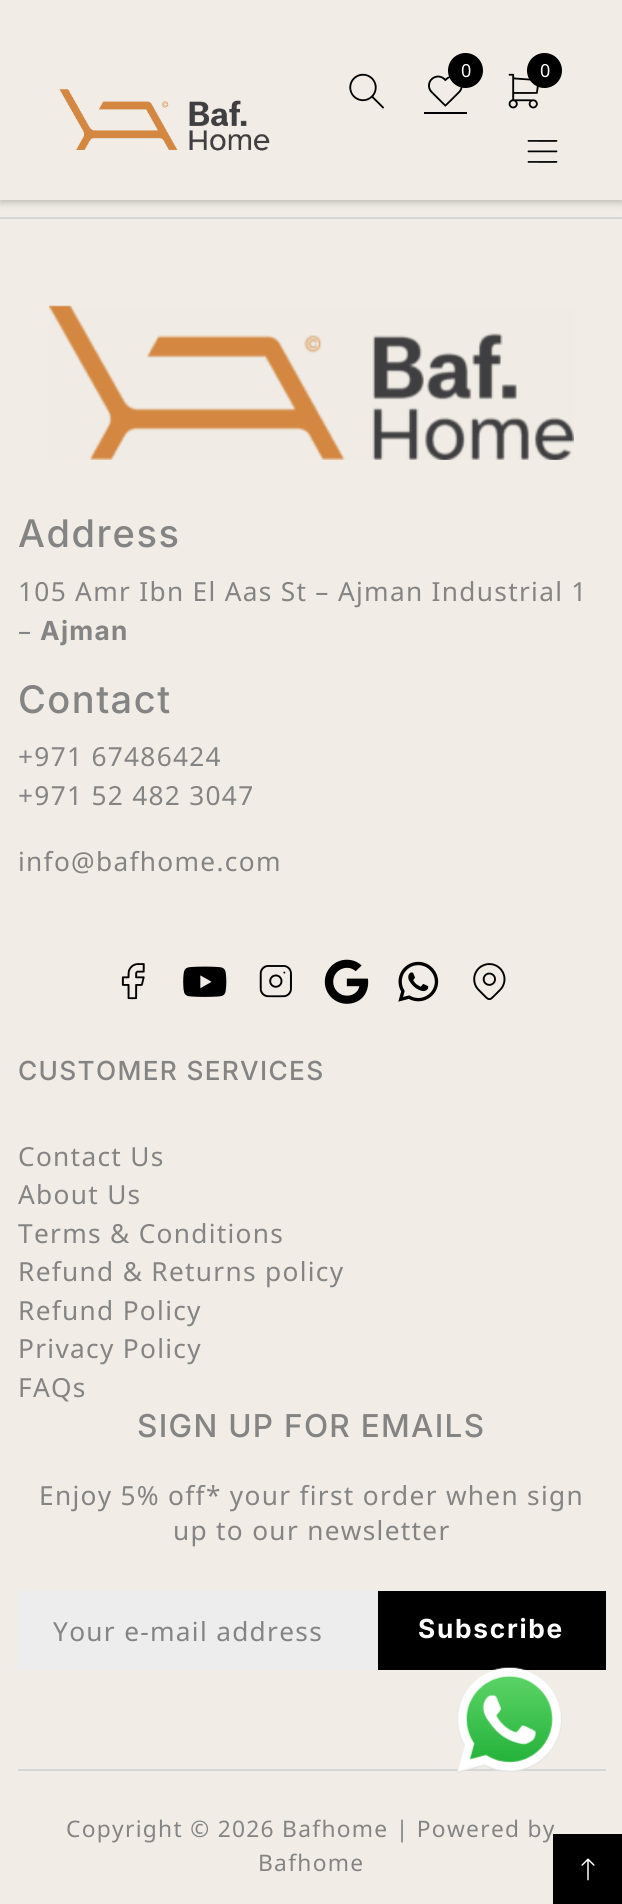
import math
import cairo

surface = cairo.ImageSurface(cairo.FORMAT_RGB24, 622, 1904)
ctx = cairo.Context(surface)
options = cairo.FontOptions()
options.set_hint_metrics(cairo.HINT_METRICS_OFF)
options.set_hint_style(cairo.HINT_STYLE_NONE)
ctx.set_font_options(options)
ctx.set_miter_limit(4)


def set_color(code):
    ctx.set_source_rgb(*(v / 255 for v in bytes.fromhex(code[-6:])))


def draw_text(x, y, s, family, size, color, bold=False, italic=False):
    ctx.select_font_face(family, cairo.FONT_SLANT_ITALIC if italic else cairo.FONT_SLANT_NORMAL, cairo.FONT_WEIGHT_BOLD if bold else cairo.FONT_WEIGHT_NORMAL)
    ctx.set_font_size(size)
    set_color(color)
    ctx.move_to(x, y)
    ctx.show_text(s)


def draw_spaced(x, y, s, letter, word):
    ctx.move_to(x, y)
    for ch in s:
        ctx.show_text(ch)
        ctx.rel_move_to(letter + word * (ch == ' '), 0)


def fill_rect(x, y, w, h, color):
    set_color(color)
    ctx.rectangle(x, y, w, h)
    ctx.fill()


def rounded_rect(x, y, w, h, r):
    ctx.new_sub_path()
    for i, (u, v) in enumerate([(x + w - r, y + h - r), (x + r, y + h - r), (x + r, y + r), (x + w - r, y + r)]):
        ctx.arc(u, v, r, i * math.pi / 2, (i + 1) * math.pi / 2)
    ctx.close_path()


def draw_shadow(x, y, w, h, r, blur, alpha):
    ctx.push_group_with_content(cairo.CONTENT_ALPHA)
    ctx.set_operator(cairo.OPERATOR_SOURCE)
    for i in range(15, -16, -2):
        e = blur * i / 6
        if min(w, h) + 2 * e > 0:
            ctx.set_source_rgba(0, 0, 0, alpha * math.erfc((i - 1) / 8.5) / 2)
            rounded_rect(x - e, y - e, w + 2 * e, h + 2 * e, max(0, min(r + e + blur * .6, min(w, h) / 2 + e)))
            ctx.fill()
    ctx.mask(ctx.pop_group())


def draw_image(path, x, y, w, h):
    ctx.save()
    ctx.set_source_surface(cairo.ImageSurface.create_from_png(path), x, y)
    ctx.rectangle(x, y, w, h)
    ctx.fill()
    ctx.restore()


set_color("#f1ede6")
ctx.paint()
set_color("#000000")
draw_shadow(0, 4, 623, 199, 0, 3.5, 0.2)
fill_rect(0, 0, 622, 200, "#f1ede6")
draw_image("assets/img1.png", 428, 75, 35, 32)
set_color("#000000")
ctx.arc(465.5, 70.5, 17.5, 0, 2 * math.pi)
ctx.fill()
draw_text(461, 77, "0", "Noto Sans", 18, "#ffffff")
fill_rect(424, 112, 43, 2, "#000000")
draw_image("assets/img2.png", 508, 73, 31, 36)
ctx.arc(544.5, 70.5, 17.5, 0, 2 * math.pi)
ctx.fill()
draw_text(540, 77, "0", "Noto Sans", 18, "#ffffff")
draw_image("assets/img3.png", 349, 73, 35, 36)
draw_image("assets/img4.png", 527, 140, 31, 23)
draw_image("assets/img5.png", 59, 89, 211, 62)
fill_rect(0, 217, 622, 2, "#d6d6d6")
draw_image("assets/img6.png", 49, 305, 525, 155)
ctx.select_font_face("Inter Medium")
ctx.set_font_size(38)
set_color("#848484")
draw_spaced(18, 547, "Address", 1.5, 0)
ctx.select_font_face("Noto Sans")
ctx.set_font_size(26.25)
draw_spaced(18, 601, "105 Amr Ibn El Aas St – Ajman Industrial 1", 1.3, 0)
draw_spaced(18, 640, "–", 1.3, 0)
ctx.select_font_face("Inter", cairo.FONT_SLANT_NORMAL, cairo.FONT_WEIGHT_BOLD)
draw_spaced(40, 640, "Ajman", 1.3, 0)
ctx.select_font_face("Inter Medium")
ctx.set_font_size(38)
draw_spaced(18, 713, "Contact", 1.5, 0)
ctx.select_font_face("Noto Sans")
ctx.set_font_size(26.25)
draw_spaced(18, 766, "+971 67486424", 1.3, 0)
draw_spaced(18, 805, "+971 52 482 3047", 1.3, 0)
draw_spaced(18, 871, "info@bafhome.com", 1.3, 0)
draw_image("assets/img7.png", 121, 963, 24, 37)
draw_image("assets/img8.png", 183, 966, 44, 31)
draw_image("assets/img9.png", 259, 965, 33, 33)
draw_image("assets/img10.png", 324, 959, 45, 45)
draw_image("assets/img11.png", 398, 961, 41, 41)
draw_image("assets/img12.png", 473, 963, 33, 37)
ctx.select_font_face("Inter Medium")
draw_spaced(18, 1080, "CUSTOMER SERVICES", 1.3, 0)
ctx.select_font_face("Noto Sans")
draw_spaced(18, 1166, "Contact Us", 1.3, 0)
draw_spaced(18, 1204, "About Us", 1.3, 0)
draw_spaced(18, 1243, "Terms & Conditions", 1.3, 0)
draw_spaced(18, 1281, "Refund & Returns policy", 1.3, 0)
draw_spaced(18, 1320, "Refund Policy", 1.3, 0)
draw_spaced(18, 1358, "Privacy Policy", 1.3, 0)
draw_spaced(18, 1397, "FAQs", 1.3, 0)
ctx.select_font_face("Inter Medium")
ctx.set_font_size(31.5)
draw_spaced(137, 1437, "SIGN UP FOR EMAILS", 1.3, 0)
ctx.select_font_face("Noto Sans")
ctx.set_font_size(26.25)
draw_spaced(39, 1505, "Enjoy 5% off* your first order when sign", 1.3, 0)
draw_spaced(173, 1540, "up to our newsletter", 1.3, 0)
fill_rect(18, 1591, 360, 79, "#ededed")
set_color("#848484")
draw_spaced(53, 1641, "Your e-mail address", 1.3, 0)
fill_rect(378, 1591, 228, 79, "#000000")
ctx.select_font_face("Inter", cairo.FONT_SLANT_NORMAL, cairo.FONT_WEIGHT_BOLD)
set_color("#ffffff")
draw_spaced(418, 1638, "Subscribe", 1.75, 0)
fill_rect(18, 1769, 588, 2, "#d6d6d6")
ctx.select_font_face("Noto Sans")
ctx.set_font_size(22.75)
set_color("#848484")
draw_spaced(66, 1837, "Copyright © 2026 Bafhome | Powered by", 1.3, 0)
draw_spaced(258, 1871, "Bafhome", 1.3, 0)
draw_image("assets/img13.png", 457, 1667, 105, 106)
fill_rect(553, 1834, 69, 70, "#000000")
draw_image("assets/img14.png", 581, 1858, 14, 23)
surface.write_to_png("output.png")
